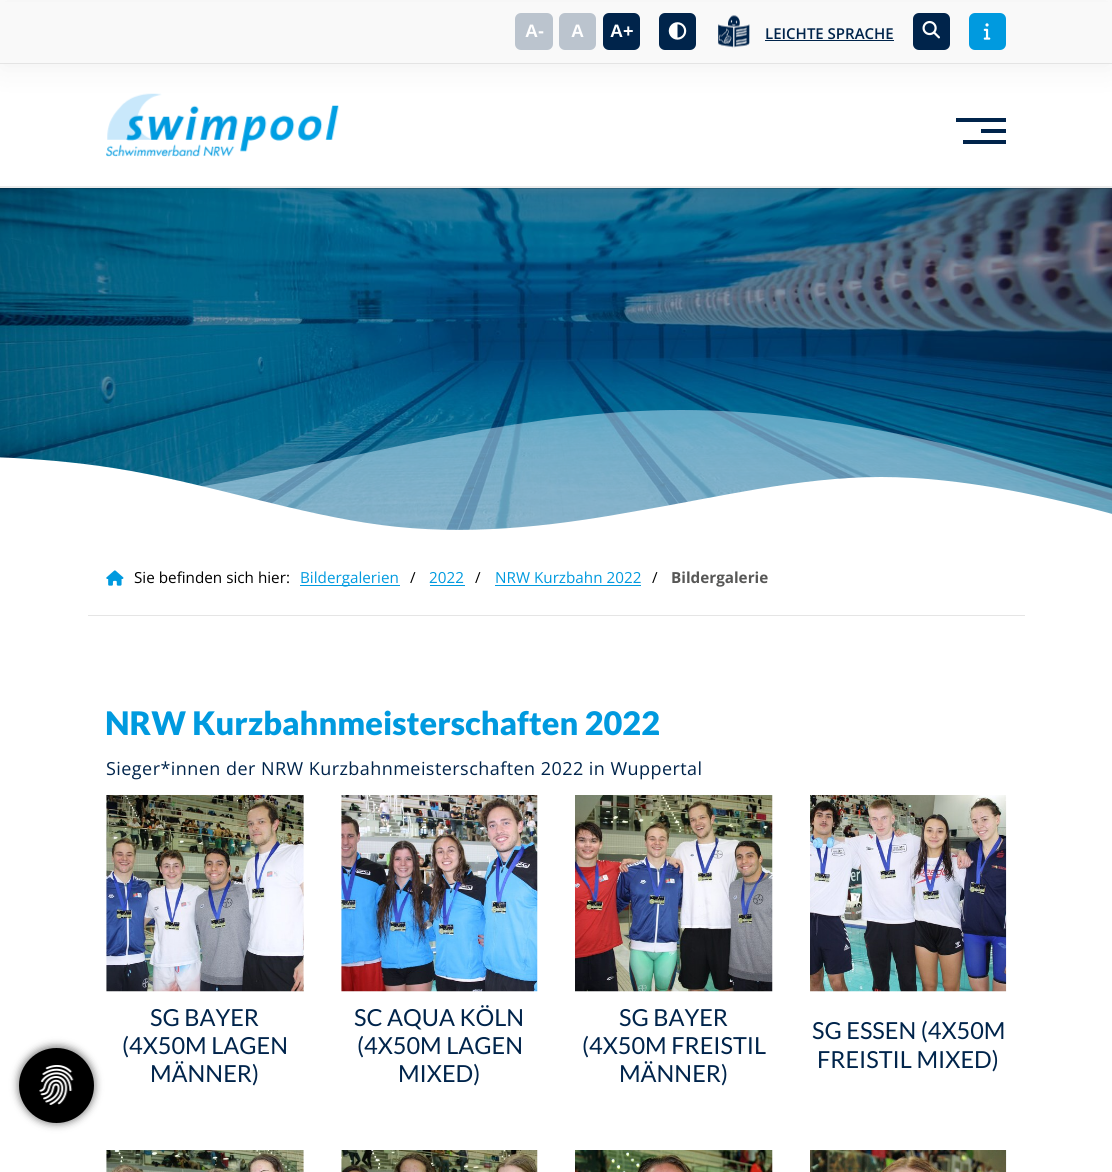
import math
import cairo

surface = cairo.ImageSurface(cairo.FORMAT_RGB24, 1112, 1172)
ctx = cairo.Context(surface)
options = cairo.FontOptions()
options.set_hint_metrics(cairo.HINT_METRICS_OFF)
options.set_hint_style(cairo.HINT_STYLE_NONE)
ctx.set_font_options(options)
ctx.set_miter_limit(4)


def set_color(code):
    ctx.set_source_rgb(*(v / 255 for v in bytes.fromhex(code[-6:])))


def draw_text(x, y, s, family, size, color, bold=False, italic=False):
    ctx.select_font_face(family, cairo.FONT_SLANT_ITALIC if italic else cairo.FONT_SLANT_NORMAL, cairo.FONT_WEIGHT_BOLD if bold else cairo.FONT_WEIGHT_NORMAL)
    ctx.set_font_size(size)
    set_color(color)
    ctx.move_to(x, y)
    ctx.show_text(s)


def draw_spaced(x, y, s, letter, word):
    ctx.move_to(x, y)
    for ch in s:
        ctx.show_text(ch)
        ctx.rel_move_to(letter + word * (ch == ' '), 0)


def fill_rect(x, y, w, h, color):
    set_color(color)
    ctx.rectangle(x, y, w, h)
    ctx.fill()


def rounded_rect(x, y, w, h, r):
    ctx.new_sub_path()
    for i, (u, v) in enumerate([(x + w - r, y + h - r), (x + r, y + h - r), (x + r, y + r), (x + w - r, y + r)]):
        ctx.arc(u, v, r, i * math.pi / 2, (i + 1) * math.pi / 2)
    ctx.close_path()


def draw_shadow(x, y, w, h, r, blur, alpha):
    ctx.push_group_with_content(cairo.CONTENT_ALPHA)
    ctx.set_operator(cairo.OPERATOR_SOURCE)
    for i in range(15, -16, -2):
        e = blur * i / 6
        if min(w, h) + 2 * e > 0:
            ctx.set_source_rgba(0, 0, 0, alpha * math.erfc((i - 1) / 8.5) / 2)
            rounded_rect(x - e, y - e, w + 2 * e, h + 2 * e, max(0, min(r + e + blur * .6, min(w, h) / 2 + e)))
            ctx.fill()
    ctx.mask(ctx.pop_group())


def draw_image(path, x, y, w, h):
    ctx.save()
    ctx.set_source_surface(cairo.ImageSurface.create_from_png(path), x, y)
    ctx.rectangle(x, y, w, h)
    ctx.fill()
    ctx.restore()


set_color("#ffffff")
ctx.paint()
draw_image("assets/img6.png", 0, 188, 1112, 342)
ctx.rectangle(-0.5, -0.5, 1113, 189)
ctx.set_source_rgba(0, 0, 0, 0.08)
ctx.set_line_width(1)
ctx.stroke()
set_color("#000000")
draw_shadow(0, 8, 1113, 187, 0, 15, 0.05)
fill_rect(0, 64, 1112, 124, "#ffffff")
ctx.rectangle(-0.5, -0.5, 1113, 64)
set_color("#ebebeb")
ctx.stroke()
set_color("#000000")
draw_shadow(0, 8, 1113, 62, 0, 15, 0.05)
fill_rect(0, 2, 1112, 61, "#f9f9f9")
set_color("#bbc4ce")
rounded_rect(515, 13, 38, 37, 6)
ctx.fill()
draw_text(525, 37, "A-", "Liberation Sans", 18, "#ffffff", bold=True)
set_color("#bbc4ce")
rounded_rect(559, 13, 37, 37, 6)
ctx.fill()
draw_text(571, 37, "A", "Liberation Sans", 18, "#ffffff", bold=True)
set_color("#00244b")
rounded_rect(603, 13, 37, 37, 6)
ctx.fill()
draw_text(610, 37, "A+", "Liberation Sans", 18, "#ffffff", bold=True)
set_color("#00244b")
rounded_rect(659, 13, 37, 37, 6)
ctx.fill()
draw_image("assets/img1.png", 668, 22, 19, 18)
draw_image("assets/img2.png", 718, 15, 32, 33)
draw_text(765, 39, "LEICHTE SPRACHE", "Open Sans SemiBold", 15, "#00244b")
fill_rect(765, 40, 129, 1, "#00244b")
rounded_rect(913, 13, 37, 37, 6)
ctx.fill()
draw_image("assets/img3.png", 922, 20, 18, 19)
set_color("#009adf")
rounded_rect(969, 13, 37, 37, 6)
ctx.fill()
draw_image("assets/img4.png", 983, 23, 8, 17)
draw_image("assets/img5.png", 106, 93, 233, 64)
fill_rect(981, 129, 25, 4, "#00244b")
fill_rect(956, 118, 50, 4, "#00244b")
fill_rect(956, 140, 50, 4, "#00244b")
fill_rect(956, 140, 7, 4, "#ffffff")
ctx.set_source_rgba(0, 0, 0, 0.08)
ctx.rectangle(0, 186, 1112, 3)
ctx.fill()
ctx.set_source_rgba(0.792, 0.91, 0.984, 0.49)
ctx.new_path()
ctx.move_to(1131, 494)
ctx.line_to(1056, 473)
ctx.curve_to(981, 452, 831, 410, 681, 410)
ctx.curve_to(531, 410, 381, 452, 231, 481)
ctx.curve_to(81, 510, -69, 527, -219, 506)
ctx.curve_to(-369, 485, -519, 427, -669, 398)
ctx.curve_to(-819, 369, -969, 369, -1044, 369)
ctx.line_to(-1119, 369)
ctx.line_to(-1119, 544)
ctx.line_to(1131, 544)
ctx.close_path()
ctx.fill()
set_color("#ffffff")
ctx.new_path()
ctx.move_to(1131, 519)
ctx.line_to(1090, 508)
ctx.curve_to(1048, 498, 965, 477, 881, 477)
ctx.curve_to(798, 477, 715, 498, 631, 512)
ctx.curve_to(548, 527, 465, 536, 381, 525)
ctx.curve_to(298, 514, 215, 486, 131, 471)
ctx.curve_to(48, 456, -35, 456, -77, 456)
ctx.line_to(-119, 456)
ctx.line_to(-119, 544)
ctx.line_to(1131, 544)
ctx.close_path()
ctx.fill()
fill_rect(88, 615, 937, 1, "#e5e5e5")
draw_image("assets/img7.png", 106, 570, 18, 16)
draw_text(134, 583, "Sie befinden sich hier:", "Open Sans", 15.25, "#000000")
fill_rect(300, 585, 100, 1, "#009adf")
draw_text(300, 583, "Bildergalerien", "Open Sans", 15.25, "#009adf")
draw_text(410, 583, "/", "Open Sans", 15.25, "#000000")
draw_text(429, 583, "2022", "Open Sans", 15.25, "#009adf")
fill_rect(430, 585, 35, 1, "#009adf")
draw_text(475, 583, "/", "Open Sans", 15.25, "#000000")
draw_text(495, 583, "NRW Kurzbahn 2022", "Open Sans", 15.25, "#009adf")
fill_rect(495, 585, 146, 1, "#009adf")
draw_text(652, 583, "/", "Open Sans", 15.25, "#000000")
draw_text(671, 583, "Bildergalerie", "Open Sans", 15.25, "#575756", bold=True)
set_color("#000000")
draw_shadow(18, 1046, 77, 78, 38.5, 4, 0.5)
set_color("#000000")
ctx.arc(56.5, 1085.5, 37.5, 0, 2 * math.pi)
ctx.fill()
draw_image("assets/img8.png", 39, 1065, 35, 40)
draw_text(105, 735, "NRW Kurzbahnmeisterschaften 2022", "Lato Black", 32.5, "#009adf")
ctx.select_font_face("Open Sans")
ctx.set_font_size(18)
set_color("#00244b")
draw_spaced(106, 775, "Sieger*innen der NRW Kurzbahnmeisterschaften 2022 in Wuppertal", 0.45, 0)
draw_image("assets/img9.png", 106, 795, 198, 197)
draw_text(150, 1026, "SG BAYER", "Lato", 23.5, "#00244b")
draw_text(122, 1054, "(4X50M LAGEN", "Lato", 23.5, "#00244b")
draw_text(150, 1082, "MÄNNER)", "Lato", 23.5, "#00244b")
draw_image("assets/img10.png", 341, 795, 197, 197)
draw_text(354, 1026, "SC AQUA KÖLN", "Lato", 23.5, "#00244b")
draw_text(357, 1054, "(4X50M LAGEN", "Lato", 23.5, "#00244b")
draw_text(398, 1082, "MIXED)", "Lato", 23.5, "#00244b")
draw_image("assets/img11.png", 575, 795, 198, 197)
draw_text(619, 1026, "SG BAYER", "Lato", 23.5, "#00244b")
draw_text(582, 1054, "(4X50M FREISTIL", "Lato", 23.5, "#00244b")
draw_text(619, 1082, "MÄNNER)", "Lato", 23.5, "#00244b")
draw_image("assets/img12.png", 810, 795, 197, 197)
draw_text(812, 1039, "SG ESSEN (4X50M", "Lato", 23.5, "#00244b")
draw_text(817, 1068, "FREISTIL MIXED)", "Lato", 23.5, "#00244b")
draw_image("assets/img13.png", 106, 1150, 198, 22)
draw_image("assets/img14.png", 341, 1150, 197, 22)
draw_image("assets/img15.png", 575, 1150, 198, 22)
draw_image("assets/img16.png", 810, 1150, 197, 22)
surface.write_to_png("output.png")
